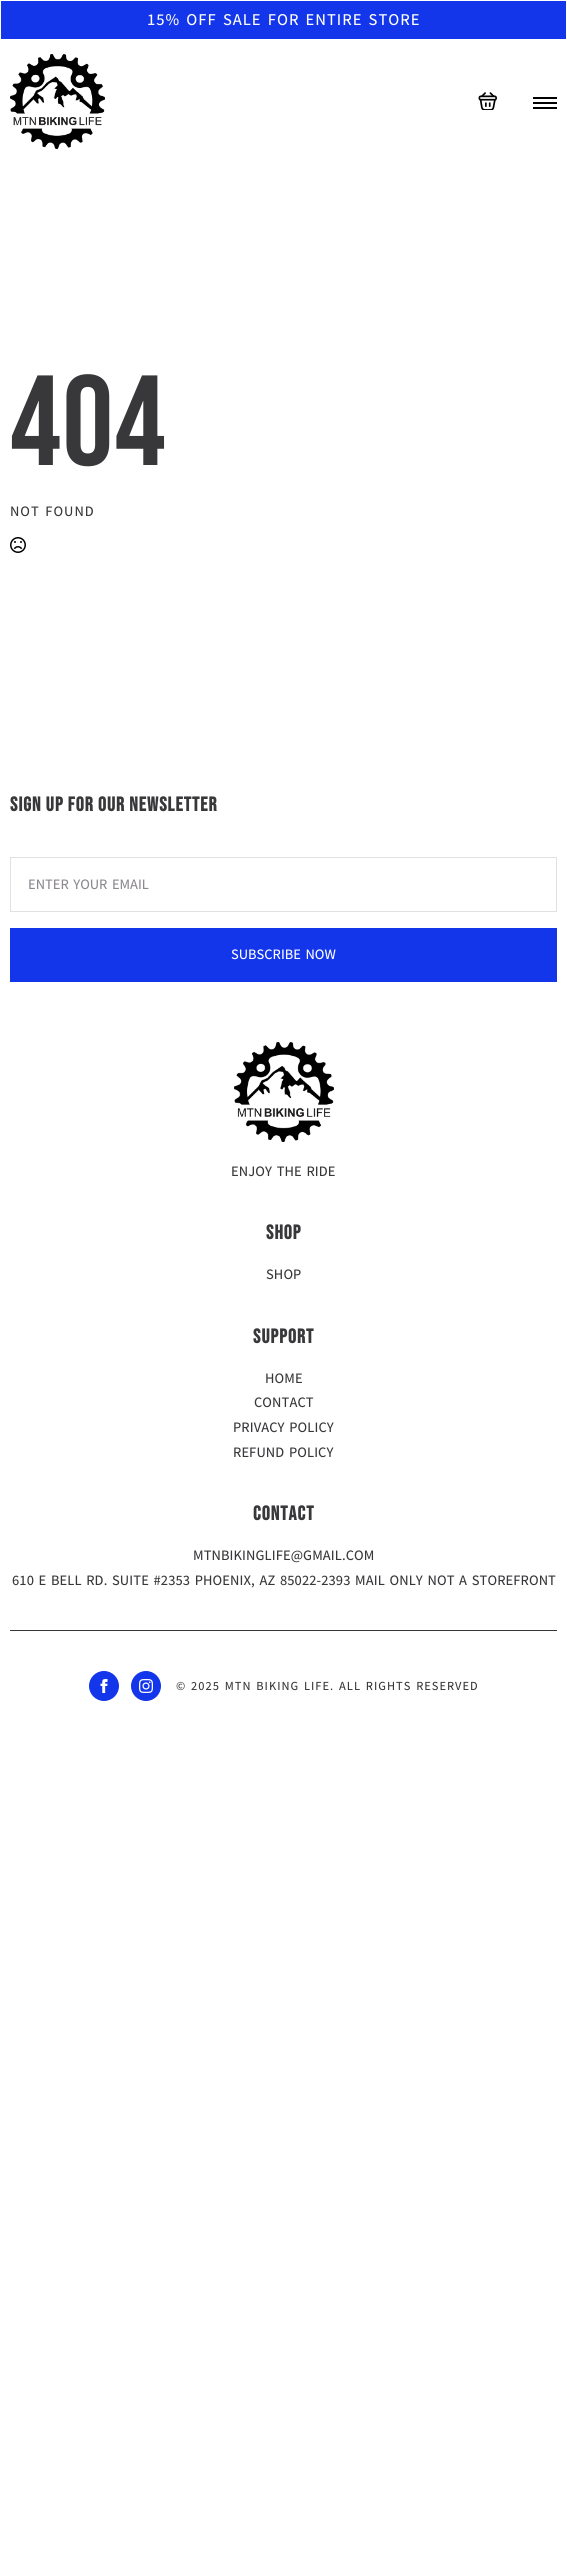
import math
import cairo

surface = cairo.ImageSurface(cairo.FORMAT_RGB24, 567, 2555)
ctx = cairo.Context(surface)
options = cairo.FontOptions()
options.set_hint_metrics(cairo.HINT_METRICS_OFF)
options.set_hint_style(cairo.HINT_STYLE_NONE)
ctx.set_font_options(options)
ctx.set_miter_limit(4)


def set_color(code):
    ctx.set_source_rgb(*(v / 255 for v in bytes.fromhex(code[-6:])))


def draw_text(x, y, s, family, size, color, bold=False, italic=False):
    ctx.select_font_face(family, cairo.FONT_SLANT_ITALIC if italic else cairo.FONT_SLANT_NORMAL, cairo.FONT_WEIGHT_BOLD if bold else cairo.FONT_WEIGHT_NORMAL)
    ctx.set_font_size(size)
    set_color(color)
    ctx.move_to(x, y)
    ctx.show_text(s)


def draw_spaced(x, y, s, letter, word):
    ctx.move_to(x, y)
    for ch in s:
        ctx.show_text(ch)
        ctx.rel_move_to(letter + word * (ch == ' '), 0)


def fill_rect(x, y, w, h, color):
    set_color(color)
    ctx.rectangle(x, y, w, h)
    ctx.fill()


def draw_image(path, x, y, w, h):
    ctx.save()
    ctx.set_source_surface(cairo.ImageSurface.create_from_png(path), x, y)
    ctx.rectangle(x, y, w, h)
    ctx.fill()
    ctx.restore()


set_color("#ffffff")
ctx.paint()
fill_rect(1, 1, 565, 38, "#1336ea")
ctx.select_font_face("Akatab Medium")
ctx.set_font_size(16)
set_color("#ffffff")
draw_spaced(147, 25, "15% OFF SALE FOR ENTIRE STORE", 1, 0)
draw_image("assets/img1.png", 10, 54, 95, 95)
draw_image("assets/img2.png", 478, 92, 19, 18)
fill_rect(533, 102, 24, 2, "#000000")
fill_rect(533, 97, 24, 2, "#000000")
fill_rect(533, 107, 24, 2, "#000000")
ctx.select_font_face("Bebas Neue")
ctx.set_font_size(128)
set_color("#38373a")
draw_spaced(10, 465, "404", 1, 0)
ctx.select_font_face("Akatab Medium")
ctx.set_font_size(14)
draw_spaced(10, 516, "NOT FOUND", 1, 0)
draw_image("assets/img3.png", 10, 537, 16, 16)
ctx.select_font_face("Bebas Neue", cairo.FONT_SLANT_NORMAL, cairo.FONT_WEIGHT_BOLD)
ctx.set_font_size(20)
draw_spaced(10, 811, "SIGN UP FOR OUR NEWSLETTER", 1, 0)
ctx.rectangle(10.5, 857.5, 546, 54)
set_color("#e1e1e1")
ctx.set_line_width(1)
ctx.stroke()
draw_text(28, 889, "ENTER YOUR EMAIL", "Akatab Medium", 14, "#8c8990")
fill_rect(10, 928, 547, 54, "#1336ea")
draw_text(231, 959, "SUBSCRIBE NOW", "Akatab Medium", 14, "#ffffff")
draw_image("assets/img4.png", 234, 1042, 100, 100)
set_color("#38373a")
draw_spaced(231, 1176, "ENJOY THE RIDE", 0.1, 0)
ctx.select_font_face("Bebas Neue", cairo.FONT_SLANT_NORMAL, cairo.FONT_WEIGHT_BOLD)
ctx.set_font_size(20)
draw_spaced(266, 1239, "SHOP", 1, 0)
ctx.select_font_face("Akatab Medium")
ctx.set_font_size(14)
draw_spaced(266, 1279, "SHOP", 0.1, 0)
ctx.select_font_face("Bebas Neue", cairo.FONT_SLANT_NORMAL, cairo.FONT_WEIGHT_BOLD)
ctx.set_font_size(20)
draw_spaced(253, 1343, "SUPPORT", 1, 0)
ctx.select_font_face("Akatab Medium")
ctx.set_font_size(14)
draw_spaced(265, 1383, "HOME", 0.1, 0)
draw_spaced(254, 1407, "CONTACT", 0.1, 0)
draw_spaced(233, 1432, "PRIVACY POLICY", 0.1, 0)
draw_spaced(233, 1457, "REFUND POLICY", 0.1, 0)
ctx.select_font_face("Bebas Neue", cairo.FONT_SLANT_NORMAL, cairo.FONT_WEIGHT_BOLD)
ctx.set_font_size(20)
draw_spaced(253, 1520, "CONTACT", 1, 0)
ctx.select_font_face("Akatab Medium")
ctx.set_font_size(14)
draw_spaced(193, 1560, "MTNBIKINGLIFE@GMAIL.COM", 0.1, 0)
draw_spaced(12, 1585, "610 E BELL RD. SUITE #2353 PHOENIX, AZ 85022-2393 MAIL ONLY NOT A STOREFRONT", 0.1, 0)
fill_rect(10, 1630, 547, 1, "#38373a")
set_color("#1336ea")
ctx.new_path()
ctx.arc(104, 1686, 15, 0, 2 * math.pi)
ctx.fill()
draw_image("assets/img5.png", 100, 1679, 8, 14)
ctx.arc(146, 1686, 15, 0, 2 * math.pi)
ctx.fill()
draw_image("assets/img6.png", 139, 1679, 14, 14)
ctx.set_font_size(12)
set_color("#38373a")
draw_spaced(176, 1690, "© 2025 MTN BIKING LIFE. ALL RIGHTS RESERVED", 1, 0)
surface.write_to_png("output.png")
